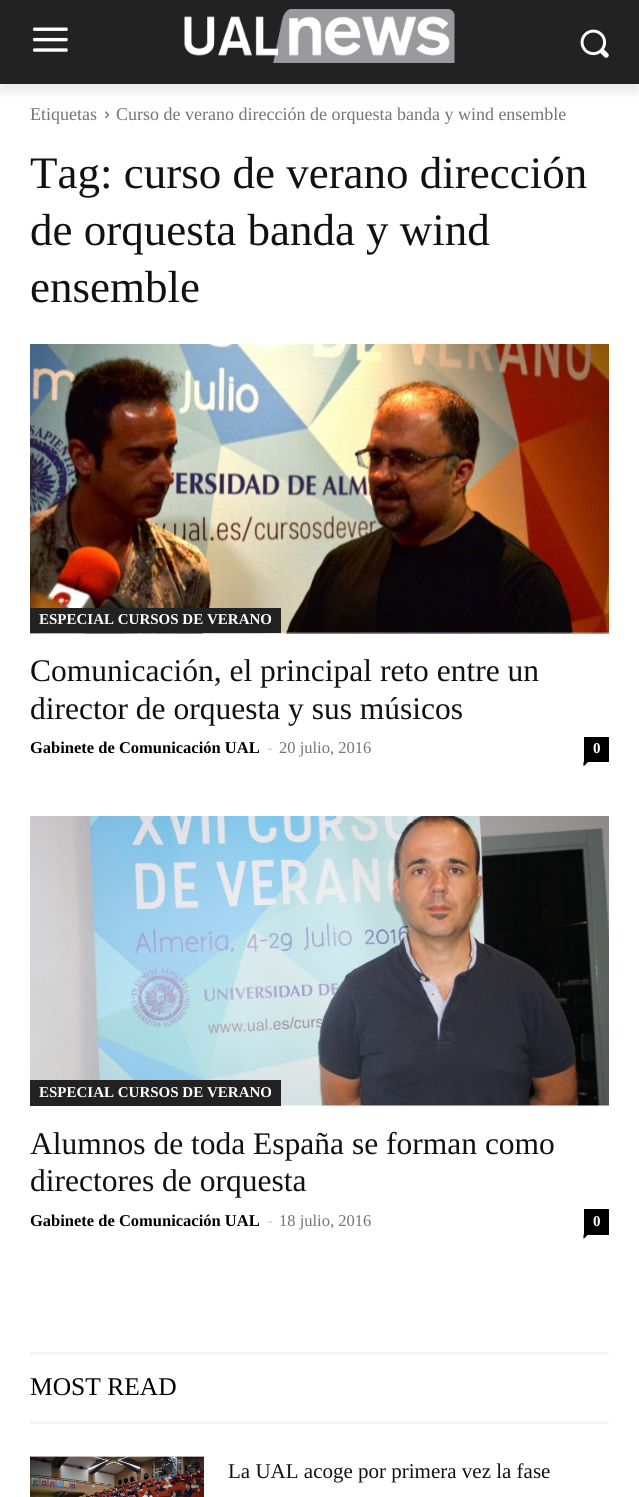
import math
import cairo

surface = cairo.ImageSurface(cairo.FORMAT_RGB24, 639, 1497)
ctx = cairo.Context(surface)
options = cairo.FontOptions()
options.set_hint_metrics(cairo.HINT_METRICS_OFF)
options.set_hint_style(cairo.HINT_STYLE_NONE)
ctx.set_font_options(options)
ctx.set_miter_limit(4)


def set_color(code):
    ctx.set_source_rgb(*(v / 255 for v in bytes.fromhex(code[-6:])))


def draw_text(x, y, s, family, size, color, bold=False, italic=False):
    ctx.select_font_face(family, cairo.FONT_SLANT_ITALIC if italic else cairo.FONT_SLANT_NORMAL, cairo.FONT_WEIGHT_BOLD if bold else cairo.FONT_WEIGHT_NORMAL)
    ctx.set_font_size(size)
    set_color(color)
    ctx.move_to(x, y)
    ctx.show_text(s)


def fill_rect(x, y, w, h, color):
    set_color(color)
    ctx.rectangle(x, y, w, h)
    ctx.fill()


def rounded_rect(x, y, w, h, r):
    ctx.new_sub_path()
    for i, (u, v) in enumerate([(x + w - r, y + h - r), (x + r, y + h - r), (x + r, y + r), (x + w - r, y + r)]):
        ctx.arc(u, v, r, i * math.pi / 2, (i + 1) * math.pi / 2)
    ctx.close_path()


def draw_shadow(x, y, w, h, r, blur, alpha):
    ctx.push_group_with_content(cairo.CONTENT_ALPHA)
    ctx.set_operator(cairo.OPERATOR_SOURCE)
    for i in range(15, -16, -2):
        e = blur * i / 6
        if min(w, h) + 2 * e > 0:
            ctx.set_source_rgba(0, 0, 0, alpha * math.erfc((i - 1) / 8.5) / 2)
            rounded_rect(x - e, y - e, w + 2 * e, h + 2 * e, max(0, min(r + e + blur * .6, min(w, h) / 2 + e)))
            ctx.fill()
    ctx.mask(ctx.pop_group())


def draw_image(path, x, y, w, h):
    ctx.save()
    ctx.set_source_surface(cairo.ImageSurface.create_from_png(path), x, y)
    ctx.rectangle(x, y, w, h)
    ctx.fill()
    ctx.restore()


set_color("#ffffff")
ctx.paint()
fill_rect(0, 0, 639, 84, "#222222")
draw_image("assets/img1.png", 33, 27, 35, 25)
draw_image("assets/img2.png", 184, 9, 271, 54)
draw_image("assets/img3.png", 580, 29, 29, 29)
draw_image("assets/img4.png", 105, 111, 4, 8)
ctx.save()
ctx.rectangle(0, 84, 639, 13)
ctx.clip()
set_color("#000000")
draw_shadow(0, 9, 639, 84, 0, 6, 0.08)
ctx.restore()
draw_text(30, 120, "Etiquetas", "Liberation Serif", 18, "#747474")
draw_text(116, 120, "Curso de verano dirección de orquesta banda y wind ensemble", "Liberation Serif", 18, "#747474")
draw_text(30, 188, "Tag: curso de verano dirección", "Liberation Serif", 45, "#111111")
draw_text(30, 245, "de orquesta banda y wind", "Liberation Serif", 45, "#111111")
draw_text(30, 302, "ensemble", "Liberation Serif", 45, "#111111")
draw_image("assets/img5.png", 30, 344, 579, 290)
fill_rect(30, 608, 251, 25, "#222222")
draw_text(39, 624, "ESPECIAL CURSOS DE VERANO", "Liberation Serif", 15, "#ffffff", bold=True)
draw_text(30, 681, "Comunicación, el principal reto entre un", "Liberation Serif", 31.5, "#111111")
draw_text(30, 719, "director de orquesta y sus músicos", "Liberation Serif", 31.5, "#111111")
draw_text(30, 753, "Gabinete de Comunicación UAL", "Liberation Serif", 16.5, "#000000", bold=True)
draw_text(267, 753, "-", "Liberation Serif", 16.5, "#cccccc")
draw_text(279, 753, "20 julio, 2016", "Liberation Serif", 16.5, "#747474")
fill_rect(584, 737, 25, 25, "#000000")
draw_text(593, 753, "0", "Liberation Serif", 15, "#ffffff", bold=True)
set_color("#000000")
ctx.new_path()
ctx.move_to(583.5, 762)
ctx.line_to(588, 762)
ctx.line_to(583.5, 766.5)
ctx.close_path()
ctx.fill()
draw_image("assets/img6.png", 30, 816, 579, 290)
fill_rect(30, 1080, 251, 26, "#222222")
draw_text(39, 1097, "ESPECIAL CURSOS DE VERANO", "Liberation Serif", 15, "#ffffff", bold=True)
draw_text(30, 1154, "Alumnos de toda España se forman como", "Liberation Serif", 31.5, "#111111")
draw_text(30, 1191, "directores de orquesta", "Liberation Serif", 31.5, "#111111")
draw_text(30, 1226, "Gabinete de Comunicación UAL", "Liberation Serif", 16.5, "#000000", bold=True)
draw_text(267, 1226, "-", "Liberation Serif", 16.5, "#cccccc")
draw_text(279, 1226, "18 julio, 2016", "Liberation Serif", 16.5, "#747474")
fill_rect(584, 1209, 25, 26, "#000000")
draw_text(593, 1226, "0", "Liberation Serif", 15, "#ffffff", bold=True)
set_color("#000000")
ctx.new_path()
ctx.move_to(583.5, 1234.5)
ctx.line_to(588, 1234.5)
ctx.line_to(583.5, 1239)
ctx.close_path()
ctx.fill()
fill_rect(30, 1352, 579, 3, "#f5f5f5")
draw_text(30, 1395, "MOST READ", "Liberation Serif", 25.5, "#000000")
fill_rect(30, 1421, 579, 3, "#f5f5f5")
draw_image("assets/img7.png", 30, 1456, 174, 41)
draw_text(228, 1478, "La UAL acoge por primera vez la fase", "Liberation Serif", 21, "#111111")
surface.write_to_png("output.png")
